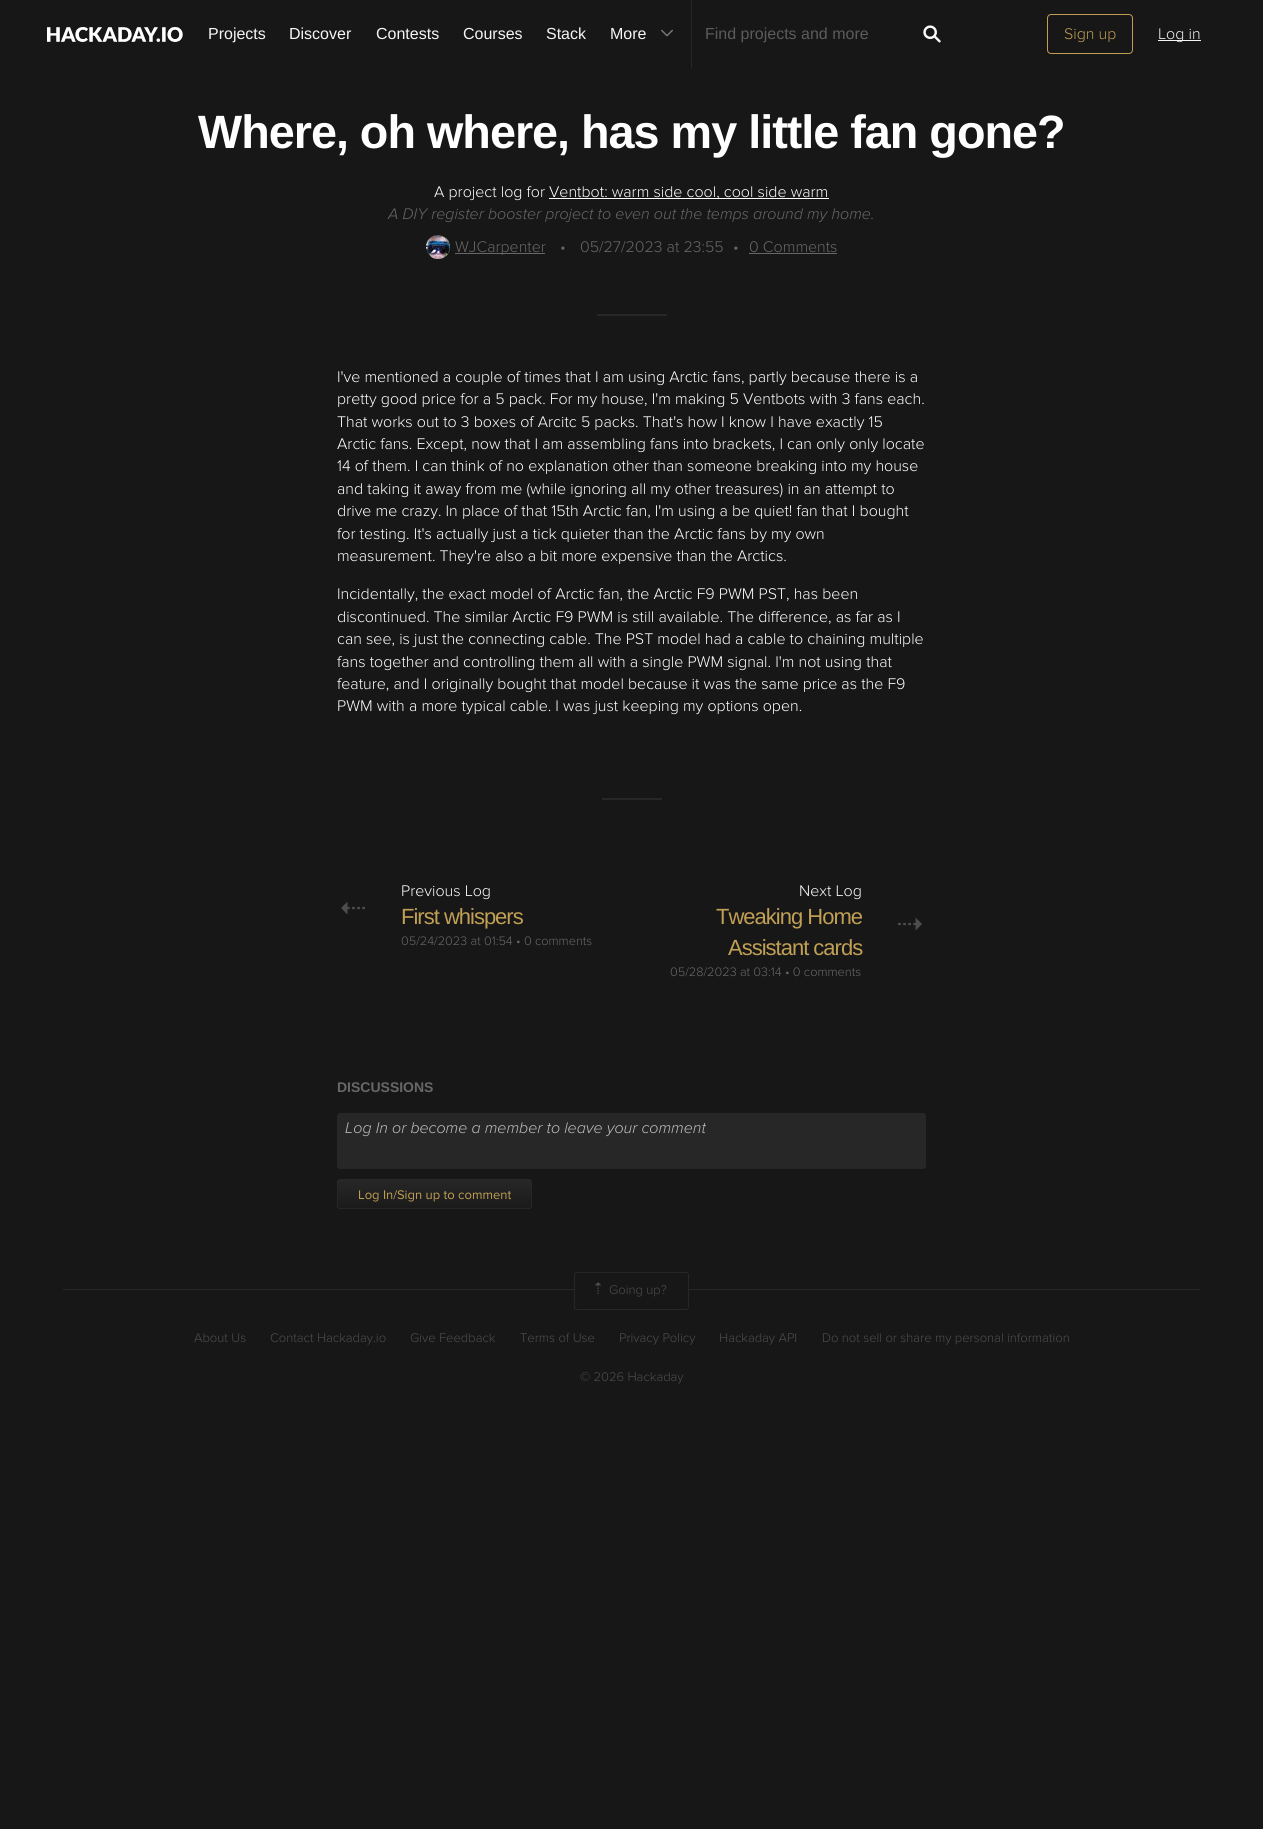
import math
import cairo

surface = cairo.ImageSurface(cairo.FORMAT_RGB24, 1263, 1829)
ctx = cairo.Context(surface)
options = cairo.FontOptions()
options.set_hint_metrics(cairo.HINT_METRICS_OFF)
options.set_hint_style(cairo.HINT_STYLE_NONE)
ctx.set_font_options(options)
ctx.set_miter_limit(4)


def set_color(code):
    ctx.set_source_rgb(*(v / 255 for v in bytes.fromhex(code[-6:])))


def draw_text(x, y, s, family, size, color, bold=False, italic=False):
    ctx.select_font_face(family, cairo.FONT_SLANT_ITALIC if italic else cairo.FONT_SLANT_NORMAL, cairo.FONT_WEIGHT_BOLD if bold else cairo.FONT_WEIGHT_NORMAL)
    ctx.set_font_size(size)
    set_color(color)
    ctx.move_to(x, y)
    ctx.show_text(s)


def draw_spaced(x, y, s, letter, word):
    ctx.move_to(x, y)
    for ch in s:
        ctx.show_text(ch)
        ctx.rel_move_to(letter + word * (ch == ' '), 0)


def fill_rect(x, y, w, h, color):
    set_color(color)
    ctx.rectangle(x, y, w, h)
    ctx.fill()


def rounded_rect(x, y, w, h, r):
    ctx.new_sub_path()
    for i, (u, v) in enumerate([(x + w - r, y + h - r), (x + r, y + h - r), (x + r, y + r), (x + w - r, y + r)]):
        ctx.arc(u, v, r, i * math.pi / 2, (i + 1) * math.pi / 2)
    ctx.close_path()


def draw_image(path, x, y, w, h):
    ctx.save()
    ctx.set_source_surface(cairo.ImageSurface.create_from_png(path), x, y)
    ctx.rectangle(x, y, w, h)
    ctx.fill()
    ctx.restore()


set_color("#171717")
ctx.paint()
draw_image("assets/img1.png", 47, 27, 136, 15)
draw_text(208, 39, "Projects", "Liberation Sans", 16, "#f5f5f5")
draw_text(289, 39, "Discover", "Liberation Sans", 16, "#f5f5f5")
draw_text(376, 39, "Contests", "Liberation Sans", 16, "#f5f5f5")
draw_text(463, 39, "Courses", "Liberation Sans", 16, "#f5f5f5")
draw_text(546, 39, "Stack", "Liberation Sans", 16, "#f5f5f5")
draw_text(610, 39, "More", "Liberation Sans", 16, "#f5f5f5")
draw_image("assets/img2.png", 661, 29, 12, 8)
fill_rect(691, 0, 1, 68, "#272727")
draw_text(705, 39, "Find projects and more", "Liberation Sans", 16, "#5b5b5b")
draw_image("assets/img3.png", 923, 25, 18, 18)
rounded_rect(1047.5, 14.5, 85, 39, 3.5)
set_color("#c19e53")
ctx.set_line_width(1)
ctx.stroke()
draw_text(1064, 39, "Sign up", "Proxima Nova Light", 16, "#c19f54")
fill_rect(1158, 40, 43, 1, "#f5f5f5")
draw_text(1158, 39, "Log in", "Proxima Nova Light", 16, "#f5f5f5")
ctx.select_font_face("Liberation Sans", cairo.FONT_SLANT_NORMAL, cairo.FONT_WEIGHT_BOLD)
ctx.set_font_size(46.75)
set_color("#ffffff")
draw_spaced(198, 148, "Where, oh where, has my little fan gone?", -1, 0)
draw_text(434, 197, "A project log for", "Proxima Nova Light", 16, "#ffffff")
fill_rect(549, 198, 280, 1, "#ffffff")
draw_text(549, 197, "Ventbot: warm side cool, cool side warm", "Proxima Nova Light", 16, "#ffffff")
draw_text(388, 219, "A DIY register booster project to even out the temps around my home.", "Proxima Nova Light", 16, "#676767", italic=True)
draw_image("assets/img4.png", 426, 235, 24, 24)
fill_rect(455, 253, 90, 1, "#676767")
draw_text(455, 252, "WJCarpenter", "Proxima Nova Light", 16, "#676767")
draw_text(560, 252, "•", "Proxima Nova Light", 16, "#676767")
draw_text(580, 252, "05/27/2023 at 23:55", "Proxima Nova Light", 16, "#676767")
draw_text(733, 252, "•", "Proxima Nova Light", 16, "#676767")
draw_text(749, 252, "0 Comments", "Proxima Nova Light", 16, "#676767")
fill_rect(749, 253, 88, 1, "#676767")
fill_rect(597, 314, 70, 2, "#272727")
draw_text(337, 382, "I've mentioned a couple of times that I am using Arctic fans, partly because there is a", "Proxima Nova Light", 16, "#ffffff")
draw_text(337, 404, "pretty good price for a 5 pack. For my house, I'm making 5 Ventbots with 3 fans each.", "Proxima Nova Light", 16, "#ffffff")
draw_text(337, 427, "That works out to 3 boxes of Arcitc 5 packs. That's how I know I have exactly 15", "Proxima Nova Light", 16, "#ffffff")
draw_text(337, 449, "Arctic fans. Except, now that I am assembling fans into brackets, I can only only locate", "Proxima Nova Light", 16, "#ffffff")
draw_text(337, 471, "14 of them. I can think of no explanation other than someone breaking into my house", "Proxima Nova Light", 16, "#ffffff")
draw_text(337, 494, "and taking it away from me (while ignoring all my other treasures) in an attempt to", "Proxima Nova Light", 16, "#ffffff")
draw_text(337, 516, "drive me crazy. In place of that 15th Arctic fan, I'm using a be quiet! fan that I bought", "Proxima Nova Light", 16, "#ffffff")
draw_text(337, 539, "for testing. It's actually just a tick quieter than the Arctic fans by my own", "Proxima Nova Light", 16, "#ffffff")
draw_text(337, 561, "measurement. They're also a bit more expensive than the Arctics.", "Proxima Nova Light", 16, "#ffffff")
draw_text(337, 599, "Incidentally, the exact model of Arctic fan, the Arctic F9 PWM PST, has been", "Proxima Nova Light", 16, "#ffffff")
draw_text(337, 622, "discontinued. The similar Arctic F9 PWM is still available. The difference, as far as I", "Proxima Nova Light", 16, "#ffffff")
draw_text(337, 644, "can see, is just the connecting cable. The PST model had a cable to chaining multiple", "Proxima Nova Light", 16, "#ffffff")
draw_text(337, 667, "fans together and controlling them all with a single PWM signal. I'm not using that", "Proxima Nova Light", 16, "#ffffff")
draw_text(337, 689, "feature, and I originally bought that model because it was the same price as the F9", "Proxima Nova Light", 16, "#ffffff")
draw_text(337, 711, "PWM with a more typical cable. I was just keeping my options open.", "Proxima Nova Light", 16, "#ffffff")
fill_rect(602, 798, 60, 2, "#272727")
draw_image("assets/img5.png", 341, 901, 24, 14)
draw_text(401, 896, "Previous Log", "Proxima Nova Light", 16, "#ffffff")
ctx.select_font_face("Liberation Sans")
ctx.set_font_size(22)
set_color("#c19f54")
draw_spaced(401, 924, "First whispers", -1, 0)
draw_text(401, 945, "05/24/2023 at 01:54 • 0 comments", "Proxima Nova Light", 12.75, "#676767")
draw_text(799, 896, "Next Log", "Proxima Nova Light", 16, "#ffffff")
ctx.select_font_face("Liberation Sans")
ctx.set_font_size(22)
set_color("#c19f54")
draw_spaced(716, 924, "Tweaking Home", -1, 0)
draw_spaced(728, 955, "Assistant cards", -1, 0)
draw_text(670, 976, "05/28/2023 at 03:14 • 0 comments", "Proxima Nova Light", 12.75, "#676767")
draw_image("assets/img6.png", 898, 917, 24, 14)
draw_text(337, 1092, "DISCUSSIONS", "Liberation Sans", 14, "#676767", bold=True)
set_color("#272727")
rounded_rect(337, 1113, 589, 56, 3)
ctx.fill()
draw_text(345, 1133, "Log In or become a member to leave your comment", "Proxima Nova Light", 16, "#bfbfbf", italic=True)
ctx.save()
rounded_rect(337, 1179, 195, 30, 3)
ctx.clip()
gradient = cairo.LinearGradient(435, 1180, 435, 1208)
gradient.add_color_stop_rgba(0, 0.153, 0.153, 0.153, 1)
gradient.add_color_stop_rgba(1, 0.102, 0.102, 0.102, 1)
ctx.set_source(gradient)
ctx.rectangle(337, 1180, 195, 28)
ctx.fill()
ctx.restore()
rounded_rect(337.5, 1179.5, 194, 29, 2.5)
set_color("#272727")
ctx.stroke()
draw_text(358, 1199, "Log In/Sign up to comment", "Proxima Nova", 13, "#c19f54")
fill_rect(63, 1289, 1137, 1, "#272727")
set_color("#171717")
rounded_rect(574.5, 1272.5, 114, 37, 2.5)
ctx.fill_preserve()
set_color("#272727")
ctx.stroke()
draw_image("assets/img7.png", 595, 1282, 6, 12)
draw_text(609, 1294, "Going up?", "Proxima Nova Light", 13, "#4d4d4d")
draw_text(194, 1342, "About Us", "Proxima Nova Light", 13, "#4d4d4d")
draw_text(270, 1342, "Contact Hackaday.io", "Proxima Nova Light", 13, "#4d4d4d")
draw_text(410, 1342, "Give Feedback", "Proxima Nova Light", 13, "#4d4d4d")
draw_text(520, 1342, "Terms of Use", "Proxima Nova Light", 13, "#4d4d4d")
draw_text(619, 1342, "Privacy Policy", "Proxima Nova Light", 13, "#4d4d4d")
draw_text(719, 1342, "Hackaday API", "Proxima Nova Light", 13, "#4d4d4d")
draw_text(822, 1342, "Do not sell or share my personal information", "Proxima Nova Light", 13, "#4d4d4d")
draw_text(580, 1381, "© 2026 Hackaday", "Proxima Nova Light", 13, "#4d4d4d")
surface.write_to_png("output.png")
